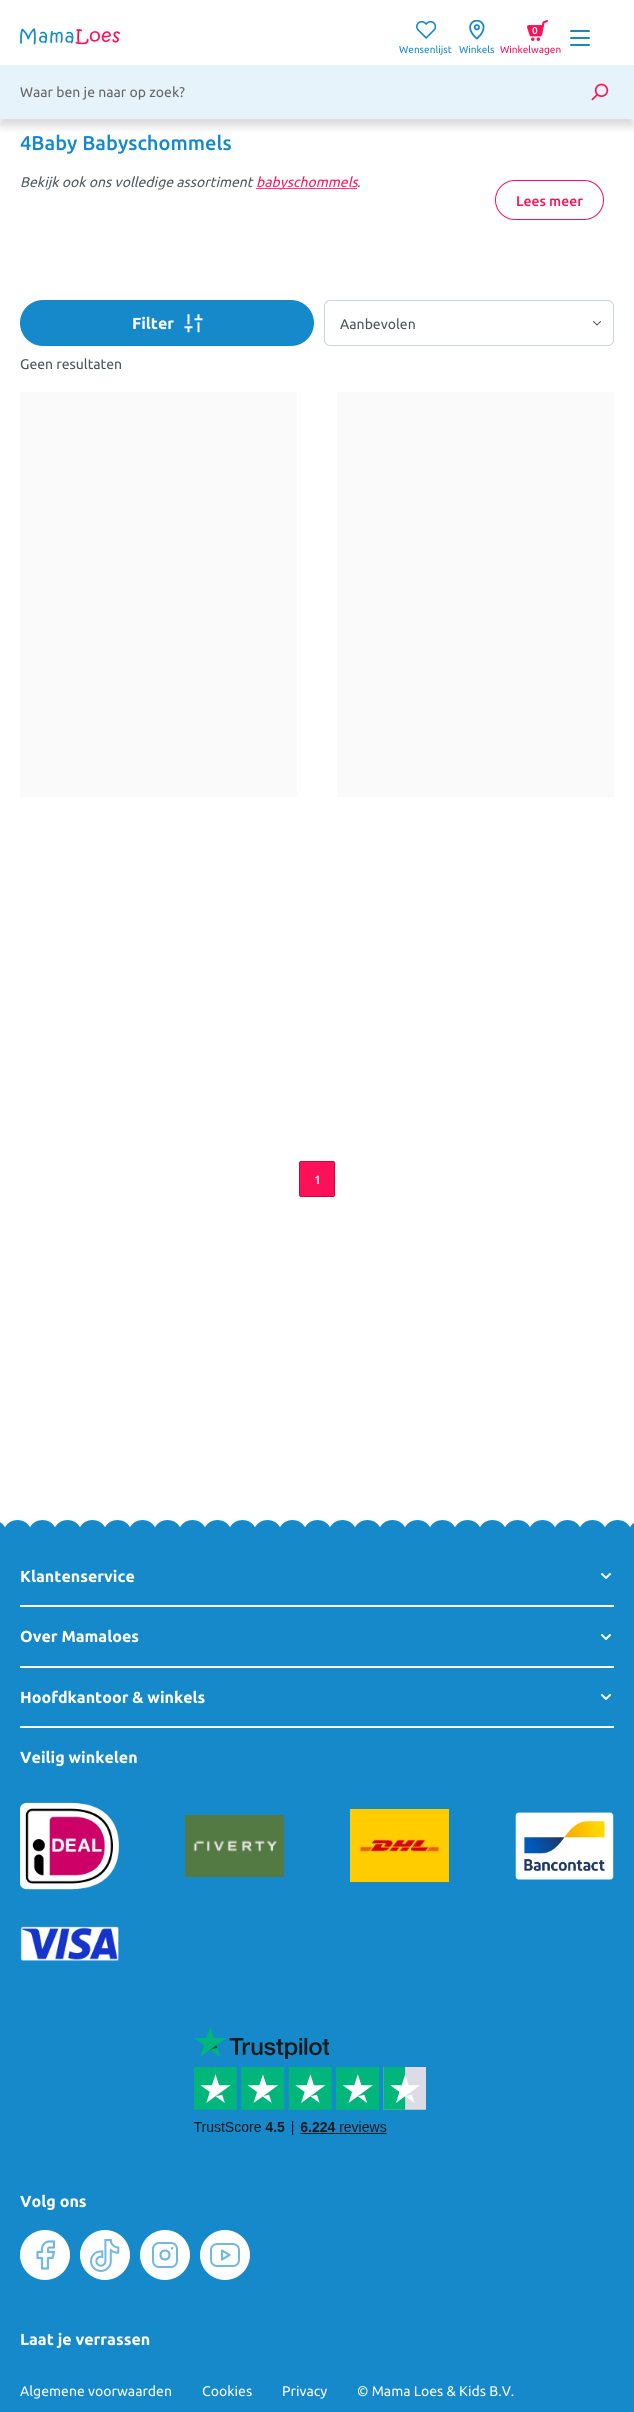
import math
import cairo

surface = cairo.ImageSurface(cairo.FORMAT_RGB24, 634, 2412)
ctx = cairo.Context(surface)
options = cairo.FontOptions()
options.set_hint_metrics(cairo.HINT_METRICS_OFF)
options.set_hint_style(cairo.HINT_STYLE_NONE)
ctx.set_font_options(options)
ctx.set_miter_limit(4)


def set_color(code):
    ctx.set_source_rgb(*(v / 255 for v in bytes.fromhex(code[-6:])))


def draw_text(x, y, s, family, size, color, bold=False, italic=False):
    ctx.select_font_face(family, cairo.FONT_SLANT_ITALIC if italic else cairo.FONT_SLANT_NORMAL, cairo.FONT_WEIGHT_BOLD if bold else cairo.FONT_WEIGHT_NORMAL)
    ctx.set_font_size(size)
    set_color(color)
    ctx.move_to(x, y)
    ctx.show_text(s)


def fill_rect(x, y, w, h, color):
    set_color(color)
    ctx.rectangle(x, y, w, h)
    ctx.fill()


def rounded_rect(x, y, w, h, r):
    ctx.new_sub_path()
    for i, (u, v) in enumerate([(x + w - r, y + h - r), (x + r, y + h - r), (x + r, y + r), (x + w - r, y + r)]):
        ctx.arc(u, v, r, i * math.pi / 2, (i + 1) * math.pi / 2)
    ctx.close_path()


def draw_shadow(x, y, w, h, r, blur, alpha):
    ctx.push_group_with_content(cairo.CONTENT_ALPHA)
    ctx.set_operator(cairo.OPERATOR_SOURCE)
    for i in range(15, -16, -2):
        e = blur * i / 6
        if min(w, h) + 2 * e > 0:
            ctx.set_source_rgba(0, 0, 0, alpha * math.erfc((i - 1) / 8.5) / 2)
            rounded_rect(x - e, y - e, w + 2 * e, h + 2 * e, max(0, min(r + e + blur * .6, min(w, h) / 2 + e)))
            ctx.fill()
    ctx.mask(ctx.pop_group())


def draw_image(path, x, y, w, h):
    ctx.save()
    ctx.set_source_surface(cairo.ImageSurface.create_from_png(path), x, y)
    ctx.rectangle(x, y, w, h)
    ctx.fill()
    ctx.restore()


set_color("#ffffff")
ctx.paint()
set_color("#000000")
draw_shadow(0, 7, 634, 119, 0, 4.5, 0.15)
fill_rect(0, 0, 634, 65, "#ffffff")
draw_image("assets/img1.png", 20, 28, 100, 17)
draw_image("assets/img2.png", 416, 21, 20, 18)
draw_text(399, 53, "Wensenlijst", "Ubuntu", 10, "#1589c9")
draw_image("assets/img3.png", 469, 20, 16, 20)
draw_text(459, 53, "Winkels", "Ubuntu", 10, "#1589c9")
draw_image("assets/img4.png", 527, 20, 21, 21)
draw_text(532, 34, "0", "Ubuntu Medium", 10, "#ffffff")
draw_text(500, 53, "Winkelwagen", "Ubuntu", 10, "#fc1057")
draw_image("assets/img5.png", 570, 30, 20, 16)
fill_rect(0, 65, 634, 54, "#e7f3fa")
draw_text(20, 97, "Waar ben je naar op zoek?", "Ubuntu", 14, "#666666")
draw_image("assets/img6.png", 591, 83, 18, 18)
draw_text(20, 150, "4Baby Babyschommels", "Ubuntu Medium", 20, "#1589c9")
draw_text(20, 187, "Bekijk ook ons volledige assortiment", "Ubuntu", 14, "#4a545b", italic=True)
fill_rect(256, 188, 101, 1, "#fc1057")
draw_text(256, 187, "babyschommels", "Ubuntu", 14, "#fc1057", italic=True)
draw_text(357, 187, ".", "Ubuntu", 14, "#4a545b", italic=True)
gradient = cairo.LinearGradient(317, 230, 317, 170)
gradient.add_color_stop_rgba(0.2, 1, 1, 1, 1)
gradient.add_color_stop_rgba(0.8, 1, 1, 1, 0)
ctx.set_source(gradient)
ctx.rectangle(21, 183, 340, 7)
ctx.fill()
rounded_rect(495.5, 180.5, 108, 39, 19.5)
set_color("#fc1057")
ctx.set_line_width(1)
ctx.stroke()
draw_text(516, 206, "Lees meer", "Ubuntu Medium", 14, "#fc1057")
set_color("#1589c9")
rounded_rect(20, 300, 294, 46, 23)
ctx.fill()
draw_text(132, 329, "Filter", "Ubuntu", 16, "#ffffff", bold=True)
draw_image("assets/img7.png", 184, 314, 19, 19)
ctx.new_path()
ctx.move_to(600.5, 321.5)
ctx.line_to(597, 325)
ctx.line_to(593.5, 321.5)
set_color("#4a545b")
ctx.set_line_cap(cairo.LINE_CAP_ROUND)
ctx.set_line_join(cairo.LINE_JOIN_ROUND)
ctx.stroke()
rounded_rect(324.5, 300.5, 289, 45, 5.5)
set_color("#cbd5e1")
ctx.set_line_cap(cairo.LINE_CAP_BUTT)
ctx.set_line_join(cairo.LINE_JOIN_MITER)
ctx.stroke()
draw_text(340, 329, "Aanbevolen", "Ubuntu", 14, "#4a545b")
draw_text(20, 369, "Geen resultaten", "Ubuntu", 14, "#4a545b")
fill_rect(20, 392, 277, 405, "#fafafa")
fill_rect(337, 392, 277, 405, "#fafafa")
set_color("#fc1057")
rounded_rect(299.5, 1161.5, 35, 35, 1.5)
ctx.fill_preserve()
set_color("#d60342")
ctx.stroke()
draw_text(314, 1184, "1", "Ubuntu Medium", 12, "#ffffff")
fill_rect(0, 1527, 634, 885, "#1589c9")
draw_image("assets/img8.png", 0, 1520, 634, 7)
fill_rect(20, 1605, 594, 2, "#ffffff")
draw_text(20, 1582, "Klantenservice", "Ubuntu", 16, "#ffffff", bold=True)
ctx.new_path()
ctx.move_to(602, 1574)
ctx.line_to(606, 1578)
ctx.line_to(610, 1574)
ctx.set_line_width(2)
ctx.set_line_cap(cairo.LINE_CAP_ROUND)
ctx.set_line_join(cairo.LINE_JOIN_ROUND)
ctx.stroke()
fill_rect(20, 1666, 594, 2, "#ffffff")
draw_text(20, 1642, "Over Mamaloes", "Ubuntu", 16, "#ffffff", bold=True)
ctx.new_path()
ctx.move_to(602, 1635)
ctx.line_to(606, 1639)
ctx.line_to(610, 1635)
ctx.stroke()
fill_rect(20, 1726, 594, 2, "#ffffff")
draw_text(20, 1703, "Hoofdkantoor & winkels", "Ubuntu", 16, "#ffffff", bold=True)
ctx.new_path()
ctx.move_to(602, 1695)
ctx.line_to(606, 1699)
ctx.line_to(610, 1695)
ctx.stroke()
draw_text(20, 1763, "Veilig winkelen", "Ubuntu", 16, "#ffffff", bold=True)
draw_image("assets/img9.png", 20, 1802, 99, 88)
draw_image("assets/img10.png", 185, 1815, 99, 62)
draw_image("assets/img11.png", 350, 1809, 99, 73)
draw_image("assets/img12.png", 515, 1812, 99, 68)
draw_image("assets/img13.png", 20, 1926, 99, 35)
draw_image("assets/img14.png", 193, 2026, 233, 109)
draw_text(20, 2207, "Volg ons", "Ubuntu", 16, "#ffffff", bold=True)
ctx.new_path()
ctx.arc(45, 2255, 25, 0, 2 * math.pi)
ctx.fill()
draw_image("assets/img15.png", 36, 2240, 20, 30)
ctx.arc(105, 2255, 25, 0, 2 * math.pi)
ctx.fill()
draw_image("assets/img16.png", 90, 2239, 30, 33)
ctx.arc(165, 2255, 25, 0, 2 * math.pi)
ctx.fill()
rounded_rect(153, 2243, 24, 24, 6)
set_color("#73b8df")
ctx.set_line_cap(cairo.LINE_CAP_BUTT)
ctx.set_line_join(cairo.LINE_JOIN_MITER)
ctx.stroke()
ctx.arc(165, 2255, 4.5, 0, 2 * math.pi)
ctx.set_line_width(2.2)
ctx.stroke()
ctx.new_path()
ctx.move_to(172, 2248)
ctx.line_to(172, 2248.5)
ctx.set_line_cap(cairo.LINE_CAP_ROUND)
ctx.set_line_join(cairo.LINE_JOIN_ROUND)
ctx.stroke()
set_color("#ffffff")
ctx.arc(225, 2255, 25, 0, 2 * math.pi)
ctx.fill()
rounded_rect(211, 2244, 28, 22, 6)
set_color("#73b8df")
ctx.set_line_width(2)
ctx.set_line_cap(cairo.LINE_CAP_BUTT)
ctx.set_line_join(cairo.LINE_JOIN_MITER)
ctx.stroke()
ctx.new_path()
ctx.move_to(222, 2250.5)
ctx.line_to(229.5, 2255)
ctx.line_to(222, 2259.5)
ctx.close_path()
ctx.set_line_width(2.2)
ctx.set_line_cap(cairo.LINE_CAP_ROUND)
ctx.set_line_join(cairo.LINE_JOIN_ROUND)
ctx.stroke()
draw_text(20, 2345, "Laat je verrassen", "Ubuntu", 16, "#ffffff", bold=True)
draw_text(20, 2396, "Algemene voorwaarden", "Ubuntu", 14, "#ffffff")
draw_text(202, 2396, "Cookies", "Ubuntu", 14, "#ffffff")
draw_text(282, 2396, "Privacy", "Ubuntu", 14, "#ffffff")
draw_text(357, 2396, "© Mama Loes & Kids B.V.", "Ubuntu", 14, "#ffffff")
surface.write_to_png("output.png")
